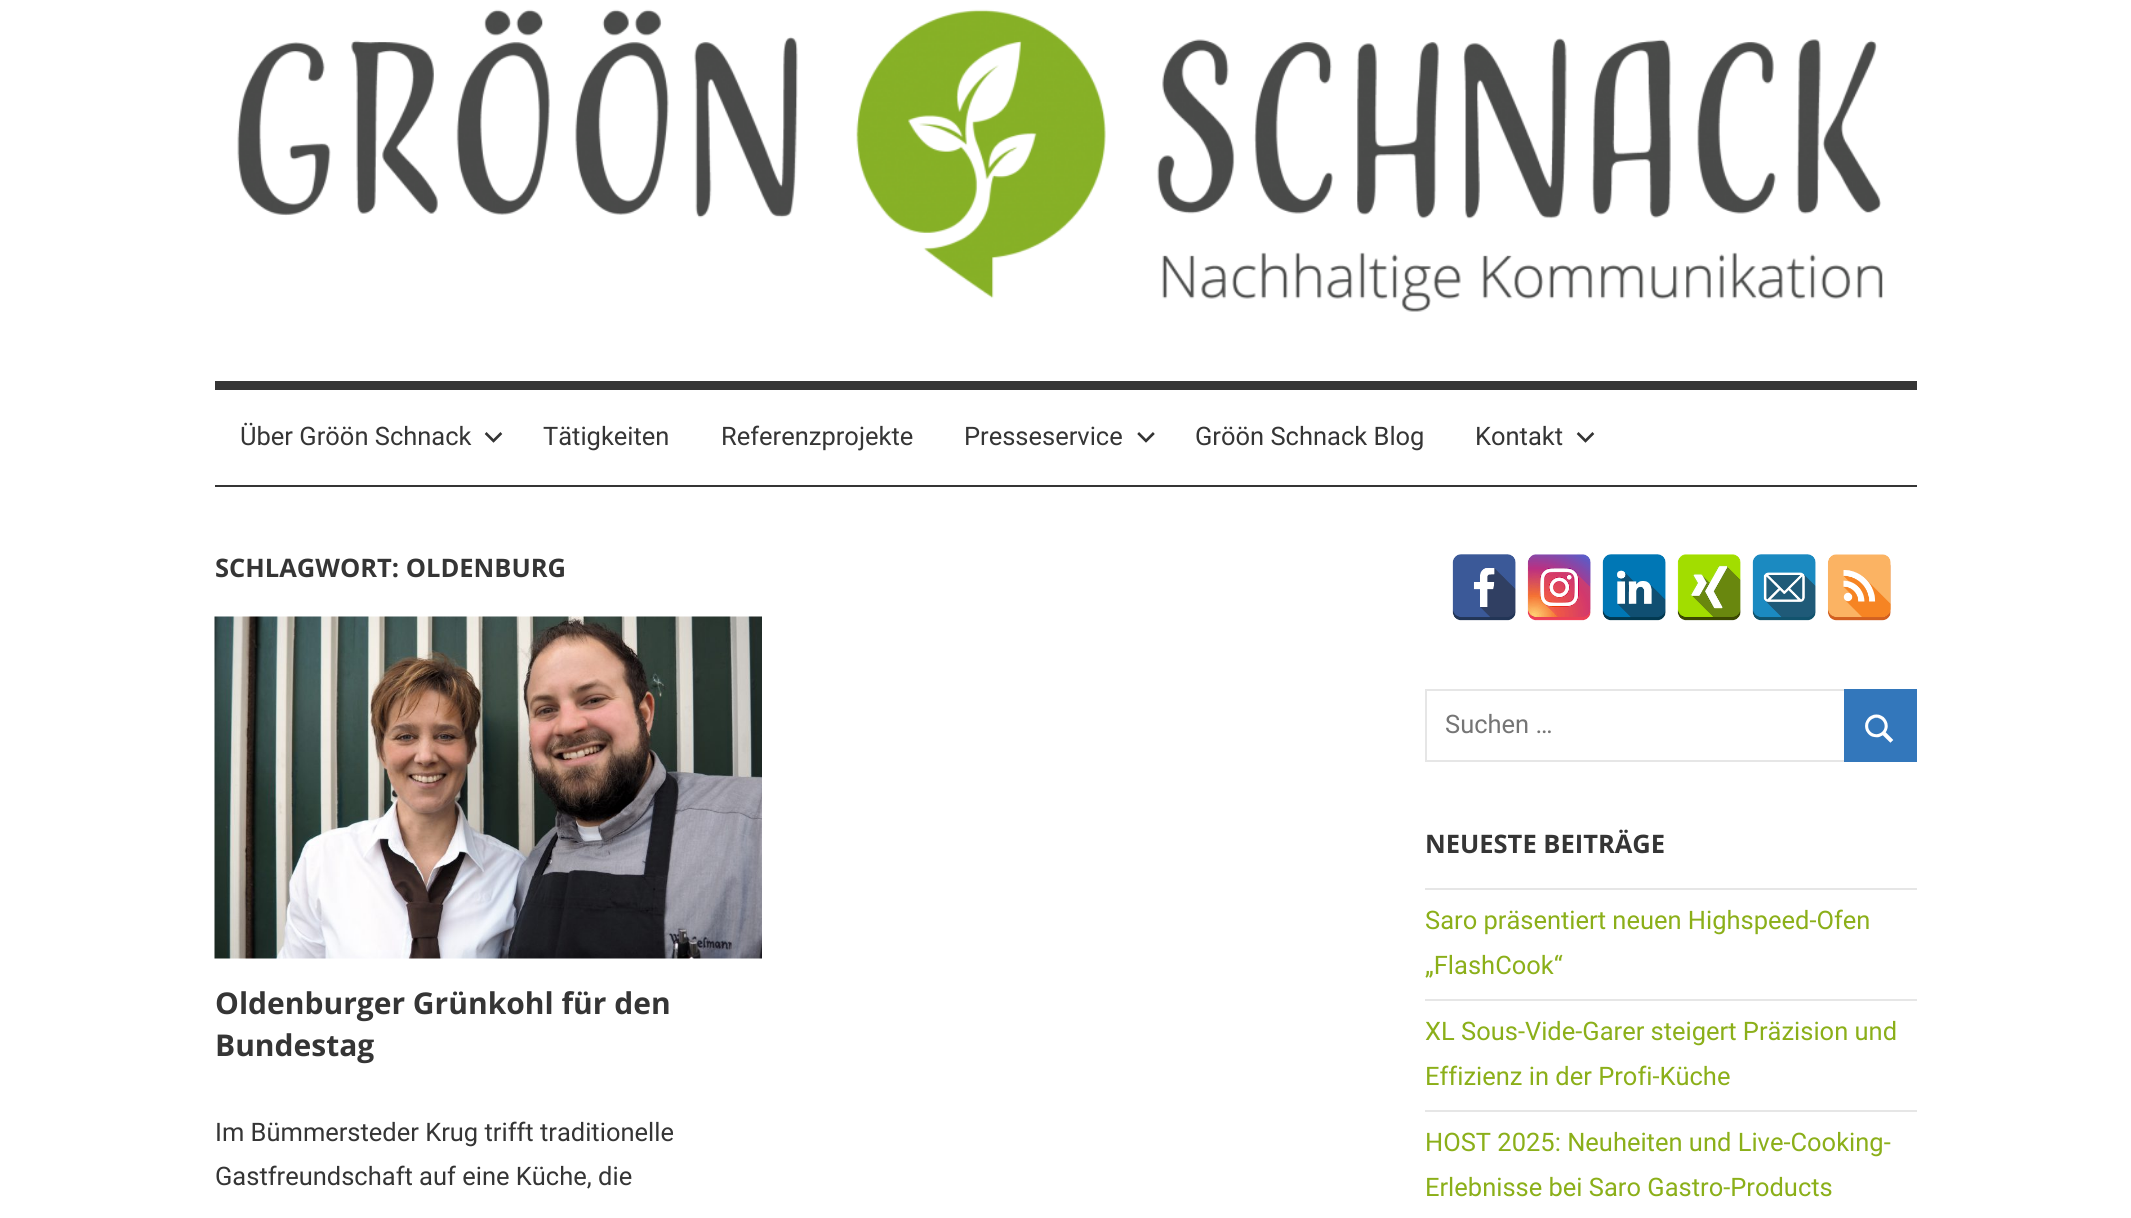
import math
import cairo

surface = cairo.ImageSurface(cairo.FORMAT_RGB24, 2131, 1218)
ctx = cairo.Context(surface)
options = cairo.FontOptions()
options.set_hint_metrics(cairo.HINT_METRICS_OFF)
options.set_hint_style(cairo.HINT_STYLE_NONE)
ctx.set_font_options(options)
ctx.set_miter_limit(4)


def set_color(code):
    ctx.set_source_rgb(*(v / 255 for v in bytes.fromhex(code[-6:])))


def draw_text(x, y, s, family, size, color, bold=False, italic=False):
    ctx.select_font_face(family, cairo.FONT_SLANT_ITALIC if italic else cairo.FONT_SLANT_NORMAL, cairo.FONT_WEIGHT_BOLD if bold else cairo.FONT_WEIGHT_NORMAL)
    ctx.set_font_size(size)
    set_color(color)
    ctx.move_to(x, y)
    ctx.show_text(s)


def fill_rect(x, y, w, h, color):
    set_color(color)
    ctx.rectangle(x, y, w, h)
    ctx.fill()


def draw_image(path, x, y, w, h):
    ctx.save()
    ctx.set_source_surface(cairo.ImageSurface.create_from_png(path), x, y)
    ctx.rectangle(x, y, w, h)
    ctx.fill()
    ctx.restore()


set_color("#ffffff")
ctx.paint()
draw_image("assets/img1.png", 237, 9, 1646, 303)
fill_rect(215, 381, 1702, 9, "#353535")
fill_rect(215, 485, 1702, 2, "#353535")
draw_text(240, 445, "Über Gröön Schnack", "Roboto", 25.5, "#353535")
draw_image("assets/img2.png", 484, 432, 19, 11)
draw_text(543, 445, "Tätigkeiten", "Roboto", 25.5, "#353535")
draw_text(721, 445, "Referenzprojekte", "Roboto", 25.5, "#353535")
draw_text(964, 445, "Presseservice", "Roboto", 25.5, "#353535")
draw_image("assets/img3.png", 1137, 432, 18, 11)
draw_text(1195, 445, "Gröön Schnack Blog", "Roboto", 25.5, "#353535")
draw_text(1475, 445, "Kontakt", "Roboto", 25.5, "#353535")
draw_image("assets/img2.png", 1576, 432, 19, 11)
draw_text(215, 577, "SCHLAGWORT: OLDENBURG", "Open Sans", 25.5, "#353535", bold=True)
draw_image("assets/img4.png", 214, 616, 548, 343)
draw_text(215, 1014, "Oldenburger Grünkohl für den", "Open Sans", 30, "#353535", bold=True)
draw_text(215, 1056, "Bundestag", "Open Sans", 30, "#353535", bold=True)
draw_text(215, 1141, "Im Bümmersteder Krug trifft traditionelle", "Roboto", 25.5, "#353535")
draw_text(215, 1185, "Gastfreundschaft auf eine Küche, die", "Roboto", 25.5, "#353535")
draw_image("assets/img5.png", 1452, 554, 64, 67)
draw_image("assets/img6.png", 1527, 554, 64, 67)
draw_image("assets/img7.png", 1602, 554, 64, 67)
draw_image("assets/img8.png", 1677, 554, 64, 67)
draw_image("assets/img9.png", 1752, 554, 64, 67)
draw_image("assets/img10.png", 1827, 554, 64, 67)
ctx.rectangle(1426, 690, 490, 71)
set_color("#e6e6e6")
ctx.stroke()
draw_text(1445, 733, "Suchen …", "Roboto", 25.5, "#757575")
fill_rect(1844, 689, 73, 73, "#3377bb")
draw_image("assets/img11.png", 1865, 714, 29, 29)
draw_text(1425, 853, "NEUESTE BEITRÄGE", "Open Sans", 25.5, "#353535", bold=True)
fill_rect(1425, 888, 492, 2, "#e6e6e6")
draw_text(1425, 929, "Saro präsentiert neuen Highspeed-Ofen", "Roboto", 25.5, "#8baf19")
draw_text(1425, 974, "„FlashCook“", "Roboto", 25.5, "#8baf19")
fill_rect(1425, 999, 492, 2, "#e6e6e6")
draw_text(1425, 1040, "XL Sous-Vide-Garer steigert Präzision und", "Roboto", 25.5, "#8baf19")
draw_text(1425, 1085, "Effizienz in der Profi-Küche", "Roboto", 25.5, "#8baf19")
fill_rect(1425, 1110, 492, 2, "#e6e6e6")
draw_text(1425, 1151, "HOST 2025: Neuheiten und Live-Cooking-", "Roboto", 25.5, "#8baf19")
draw_text(1425, 1196, "Erlebnisse bei Saro Gastro-Products", "Roboto", 25.5, "#8baf19")
surface.write_to_png("output.png")
